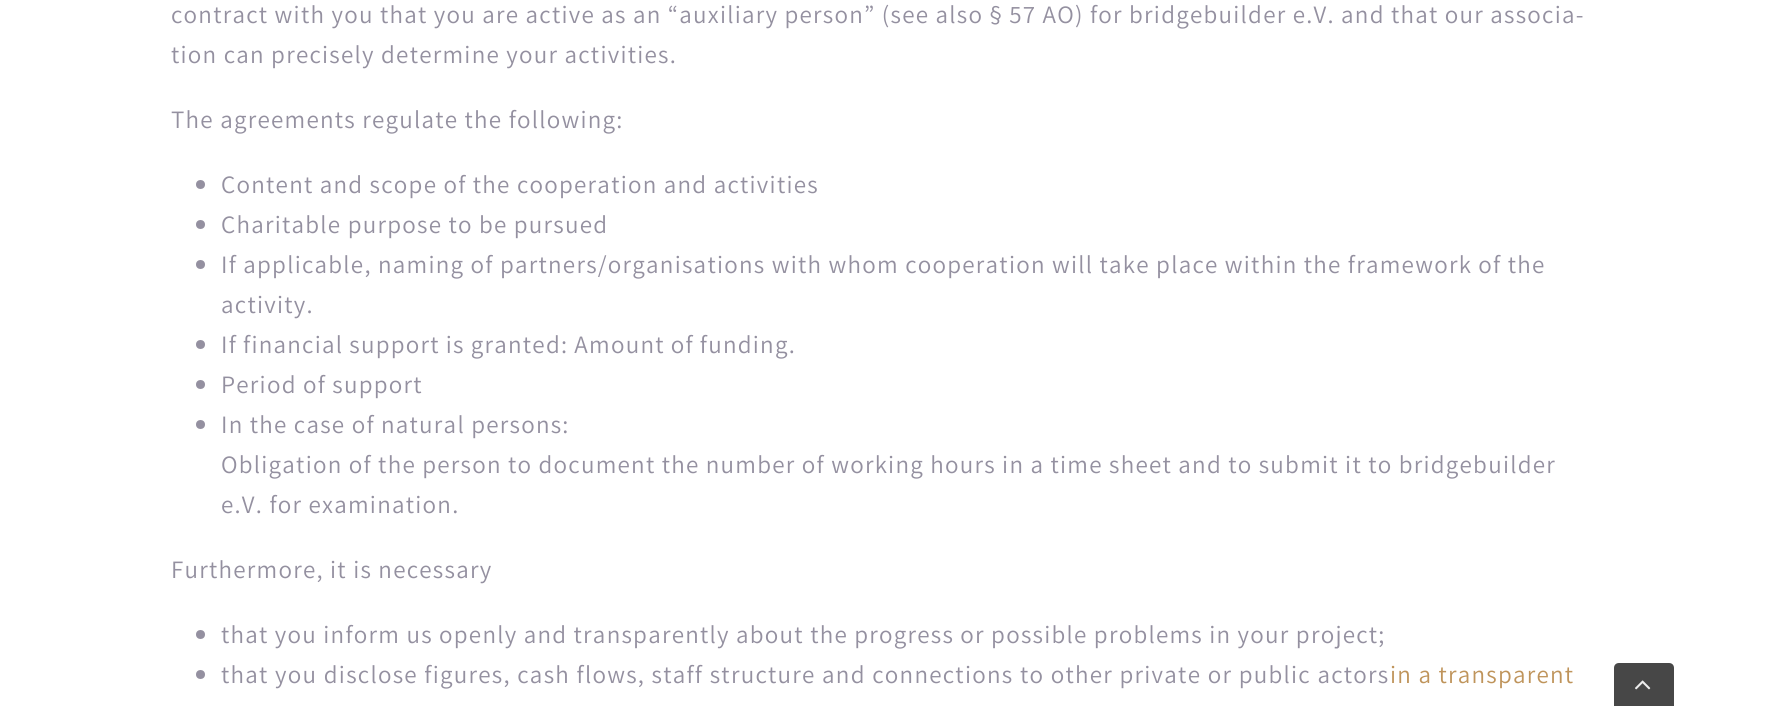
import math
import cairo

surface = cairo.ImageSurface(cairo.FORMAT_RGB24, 1767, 706)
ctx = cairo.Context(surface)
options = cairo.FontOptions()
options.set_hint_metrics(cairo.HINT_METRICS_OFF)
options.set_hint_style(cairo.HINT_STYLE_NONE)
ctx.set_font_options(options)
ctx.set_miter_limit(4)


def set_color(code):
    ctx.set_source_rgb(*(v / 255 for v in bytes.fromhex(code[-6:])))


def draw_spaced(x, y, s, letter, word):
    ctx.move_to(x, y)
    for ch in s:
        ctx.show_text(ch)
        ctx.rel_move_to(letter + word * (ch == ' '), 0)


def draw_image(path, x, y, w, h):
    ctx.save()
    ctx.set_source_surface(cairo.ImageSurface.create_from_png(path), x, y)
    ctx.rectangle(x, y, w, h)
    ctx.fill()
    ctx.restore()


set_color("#ffffff")
ctx.paint()
ctx.select_font_face("Assistant")
ctx.set_font_size(25)
set_color("#9490a0")
draw_spaced(171, 23, "contract with you that you are active as an “auxiliary person” (see also § 57 AO) for bridgebuilder e.V. and that our associa-", 1.25, 0)
draw_spaced(171, 63, "tion can precisely determine your activities.", 1.25, 0)
draw_spaced(171, 128, "The agreements regulate the following:", 1.25, 0)
ctx.new_path()
ctx.arc(200.5, 184.5, 4.5, 0, 2 * math.pi)
ctx.fill()
draw_spaced(221, 193, "Content and scope of the cooperation and activities", 1.25, 0)
ctx.new_path()
ctx.arc(200.5, 224.5, 4.5, 0, 2 * math.pi)
ctx.fill()
draw_spaced(221, 233, "Charitable purpose to be pursued", 1.25, 0)
ctx.new_path()
ctx.arc(200.5, 264.5, 4.5, 0, 2 * math.pi)
ctx.fill()
draw_spaced(221, 273, "If applicable, naming of partners/organisations with whom cooperation will take place within the framework of the", 1.25, 0)
draw_spaced(221, 313, "activity.", 1.25, 0)
ctx.new_path()
ctx.arc(200.5, 344.5, 4.5, 0, 2 * math.pi)
ctx.fill()
draw_spaced(221, 353, "If financial support is granted: Amount of funding.", 1.25, -0.25)
ctx.new_path()
ctx.arc(200.5, 384.5, 4.5, 0, 2 * math.pi)
ctx.fill()
draw_spaced(221, 393, "Period of support", 1.25, 0)
ctx.new_path()
ctx.arc(200.5, 424.5, 4.5, 0, 2 * math.pi)
ctx.fill()
draw_spaced(221, 433, "In the case of natural persons:", 1.25, 0)
draw_spaced(221, 473, "Obligation of the person to document the number of working hours in a time sheet and to submit it to bridgebuilder", 1.25, 0)
draw_spaced(221, 513, "e.V. for examination.", 1.25, 0)
draw_spaced(171, 578, "Furthermore, it is necessary", 1.25, 0)
ctx.new_path()
ctx.arc(200.5, 634.5, 4.5, 0, 2 * math.pi)
ctx.fill()
draw_spaced(221, 643, "that you inform us openly and transparently about the progress or possible problems in your project;", 1.25, 0)
ctx.new_path()
ctx.arc(200.5, 674.5, 4.5, 0, 2 * math.pi)
ctx.fill()
draw_spaced(221, 683, "that you disclose figures, cash flows, staff structure and connections to other private or public actors", 1.25, 0.25)
set_color("#bf945b")
draw_spaced(1390, 683, "in a transparent", 1.25, 0)
set_color("#474747")
ctx.new_path()
ctx.move_to(1619, 663)
ctx.line_to(1669, 663)
ctx.curve_to(1672, 663, 1674, 665, 1674, 668)
ctx.line_to(1674, 706)
ctx.line_to(1614, 706)
ctx.line_to(1614, 668)
ctx.curve_to(1614, 665, 1616, 663, 1619, 663)
ctx.close_path()
ctx.fill()
draw_image("assets/img1.png", 1635, 680, 16, 10)
surface.write_to_png("output.png")
